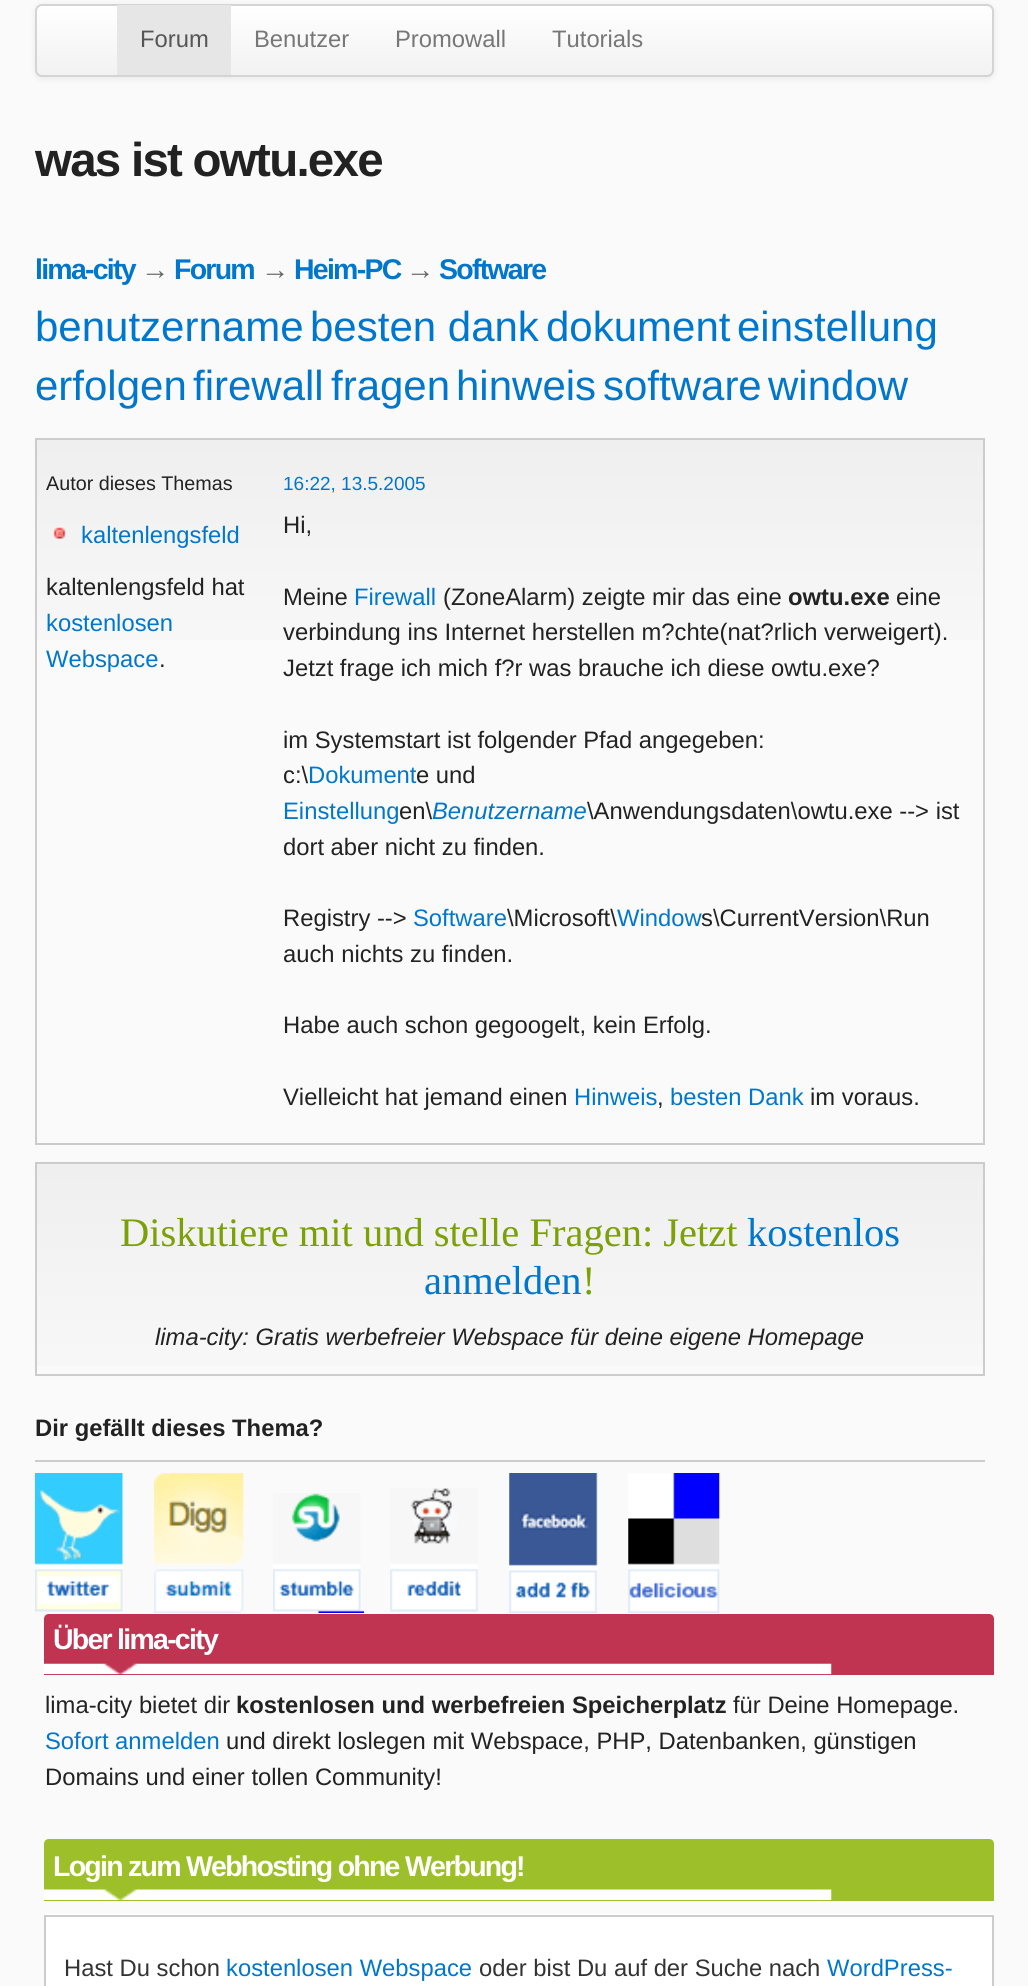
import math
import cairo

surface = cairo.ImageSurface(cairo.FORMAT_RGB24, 1028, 1986)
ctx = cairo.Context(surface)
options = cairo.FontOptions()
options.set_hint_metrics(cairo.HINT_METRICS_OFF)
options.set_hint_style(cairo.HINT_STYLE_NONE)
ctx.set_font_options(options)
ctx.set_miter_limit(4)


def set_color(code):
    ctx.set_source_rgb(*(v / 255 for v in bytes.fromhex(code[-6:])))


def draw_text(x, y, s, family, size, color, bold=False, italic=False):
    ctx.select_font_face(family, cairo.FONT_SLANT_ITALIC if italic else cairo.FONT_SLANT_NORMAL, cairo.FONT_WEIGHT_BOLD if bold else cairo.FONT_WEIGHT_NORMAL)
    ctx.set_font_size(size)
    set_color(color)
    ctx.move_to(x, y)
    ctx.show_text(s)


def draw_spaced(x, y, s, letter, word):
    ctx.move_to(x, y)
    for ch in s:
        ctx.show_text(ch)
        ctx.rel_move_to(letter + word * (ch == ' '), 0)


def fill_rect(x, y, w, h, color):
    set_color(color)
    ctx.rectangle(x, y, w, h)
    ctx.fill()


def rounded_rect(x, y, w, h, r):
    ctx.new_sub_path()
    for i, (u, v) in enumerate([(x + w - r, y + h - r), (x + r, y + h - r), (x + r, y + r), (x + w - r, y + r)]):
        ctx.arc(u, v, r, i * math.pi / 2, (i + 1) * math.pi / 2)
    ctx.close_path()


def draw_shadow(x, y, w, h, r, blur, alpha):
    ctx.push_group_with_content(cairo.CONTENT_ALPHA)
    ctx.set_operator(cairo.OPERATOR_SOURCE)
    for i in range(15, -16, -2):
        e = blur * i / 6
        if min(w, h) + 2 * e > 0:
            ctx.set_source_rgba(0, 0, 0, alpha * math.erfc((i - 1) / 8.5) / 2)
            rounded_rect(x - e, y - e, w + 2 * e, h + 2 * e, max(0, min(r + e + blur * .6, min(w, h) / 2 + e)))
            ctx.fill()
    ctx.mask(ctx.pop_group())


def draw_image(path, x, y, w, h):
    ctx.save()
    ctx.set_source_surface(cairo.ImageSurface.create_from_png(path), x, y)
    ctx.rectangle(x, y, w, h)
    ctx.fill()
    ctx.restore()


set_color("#fafafa")
ctx.paint()
set_color("#000000")
draw_shadow(35, 5, 959, 74, 7, 3.5, 0.07)
ctx.save()
rounded_rect(35, 4, 959, 73, 7)
ctx.clip()
gradient = cairo.LinearGradient(515, 5.2, 515, 75)
gradient.add_color_stop_rgba(0, 1, 1, 1, 1)
gradient.add_color_stop_rgba(1, 0.949, 0.949, 0.949, 1)
ctx.set_source(gradient)
ctx.rectangle(35, 5, 959, 70)
ctx.fill()
ctx.restore()
rounded_rect(36, 5, 957, 71, 6)
set_color("#d4d4d4")
ctx.stroke()
fill_rect(117, 5, 114, 70, "#e6e6e6")
draw_text(140, 47, "Forum", "Liberation Sans", 23.8, "#555555")
draw_text(254, 47, "Benutzer", "Liberation Sans", 23.8, "#777777")
draw_text(395, 47, "Promowall", "Liberation Sans", 23.8, "#777777")
draw_text(552, 47, "Tutorials", "Liberation Sans", 23.8, "#777777")
ctx.select_font_face("Liberation Sans", cairo.FONT_SLANT_NORMAL, cairo.FONT_WEIGHT_BOLD)
ctx.set_font_size(47.5)
set_color("#222222")
draw_spaced(35, 176, "was ist owtu.exe", -1.75, 0)
ctx.set_font_size(28.5)
set_color("#0077cc")
draw_spaced(35, 279, "lima-city", -1.75, 0)
set_color("#666666")
draw_spaced(141, 279, "→", -1.75, 0)
set_color("#0077cc")
draw_spaced(174, 279, "Forum", -1.75, 0)
set_color("#666666")
draw_spaced(261, 279, "→", -1.75, 0)
set_color("#0077cc")
draw_spaced(294, 279, "Heim-PC", -1.75, 0)
set_color("#666666")
draw_spaced(406, 279, "→", -1.75, 0)
set_color("#0077cc")
draw_spaced(439, 279, "Software", -1.75, 0)
draw_text(35, 341, "benutzername", "Liberation Sans", 42, "#0077cc")
draw_text(310, 341, "besten dank", "Liberation Sans", 42, "#0077cc")
draw_text(546, 341, "dokument", "Liberation Sans", 42, "#0077cc")
draw_text(737, 341, "einstellung", "Liberation Sans", 42, "#0077cc")
draw_text(35, 400, "erfolgen", "Liberation Sans", 42, "#0077cc")
draw_text(193, 400, "firewall", "Liberation Sans", 42, "#0077cc")
draw_text(331, 400, "fragen", "Liberation Sans", 42, "#0077cc")
draw_text(456, 400, "hinweis", "Liberation Sans", 42, "#0077cc")
draw_text(603, 400, "software", "Liberation Sans", 42, "#0077cc")
draw_text(768, 400, "window", "Liberation Sans", 42, "#0077cc")
gradient = cairo.LinearGradient(510, 439, 510, 1143)
gradient.add_color_stop_rgba(0, 0.937, 0.937, 0.937, 1)
gradient.add_color_stop_rgba(0.37, 0.98, 0.98, 0.98, 1)
ctx.set_source(gradient)
ctx.rectangle(37, 440, 946, 200)
ctx.fill()
ctx.rectangle(36, 439, 948, 705)
set_color("#cccccc")
ctx.stroke()
draw_text(46, 490, "Autor dieses Themas", "Liberation Sans", 19.75, "#222222")
draw_image("assets/img1.png", 53, 527, 13, 12)
draw_text(81, 543, "kaltenlengsfeld", "Liberation Sans", 23.8, "#0077cc")
draw_text(46, 595, "kaltenlengsfeld hat", "Liberation Sans", 23.8, "#222222")
draw_text(46, 631, "kostenlosen", "Liberation Sans", 23.8, "#0077cc")
draw_text(46, 667, "Webspace", "Liberation Sans", 23.8, "#0077cc")
draw_text(159, 667, ".", "Liberation Sans", 23.8, "#222222")
draw_text(283, 490, "16:22, 13.5.2005", "Liberation Sans", 19, "#0077cc")
draw_text(283, 533, "Hi,", "Liberation Sans", 23.8, "#222222")
draw_text(283, 605, "Meine", "Liberation Sans", 23.8, "#222222")
draw_text(354, 605, "Firewall", "Liberation Sans", 23.8, "#0077cc")
draw_text(443, 605, "(ZoneAlarm) zeigte mir das eine", "Liberation Sans", 23.8, "#222222")
draw_text(788, 605, "owtu.exe", "Liberation Sans", 23.8, "#222222", bold=True)
draw_text(896, 605, "eine", "Liberation Sans", 23.8, "#222222")
draw_text(283, 640, "verbindung ins Internet herstellen m?chte(nat?rlich verweigert).", "Liberation Sans", 23.8, "#222222")
draw_text(283, 676, "Jetzt frage ich mich f?r was brauche ich diese owtu.exe?", "Liberation Sans", 23.8, "#222222")
draw_text(283, 748, "im Systemstart ist folgender Pfad angegeben:", "Liberation Sans", 23.8, "#222222")
draw_text(283, 783, "c:\\", "Liberation Sans", 23.8, "#222222")
draw_text(308, 783, "Dokument", "Liberation Sans", 23.8, "#0077cc")
draw_text(416, 783, "e und", "Liberation Sans", 23.8, "#222222")
draw_text(283, 819, "Einstellung", "Liberation Sans", 23.8, "#0077cc")
draw_text(399, 819, "en\\", "Liberation Sans", 23.8, "#222222")
draw_text(432, 819, "Benutzername", "Liberation Sans", 23.8, "#0077cc", italic=True)
draw_text(587, 819, "\\Anwendungsdaten\\owtu.exe --> ist", "Liberation Sans", 23.8, "#222222")
draw_text(283, 855, "dort aber nicht zu finden.", "Liberation Sans", 23.8, "#222222")
draw_text(283, 926, "Registry -->", "Liberation Sans", 23.8, "#222222")
draw_text(413, 926, "Software", "Liberation Sans", 23.8, "#0077cc")
draw_text(507, 926, "\\Microsoft\\", "Liberation Sans", 23.8, "#222222")
draw_text(617, 926, "Window", "Liberation Sans", 23.8, "#0077cc")
draw_text(701, 926, "s\\CurrentVersion\\Run", "Liberation Sans", 23.8, "#222222")
draw_text(283, 962, "auch nichts zu finden.", "Liberation Sans", 23.8, "#222222")
draw_text(283, 1033, "Habe auch schon gegoogelt, kein Erfolg.", "Liberation Sans", 23.8, "#222222")
draw_text(283, 1105, "Vielleicht hat jemand einen", "Liberation Sans", 23.8, "#222222")
draw_text(574, 1105, "Hinweis", "Liberation Sans", 23.8, "#0077cc")
draw_text(657, 1105, ",", "Liberation Sans", 23.8, "#222222")
draw_text(670, 1105, "besten Dank", "Liberation Sans", 23.8, "#0077cc")
draw_text(810, 1105, "im voraus.", "Liberation Sans", 23.8, "#222222")
gradient = cairo.LinearGradient(510, 1164, 510, 1426)
gradient.add_color_stop_rgba(0, 0.937, 0.937, 0.937, 1)
gradient.add_color_stop_rgba(1, 0.98, 0.98, 0.98, 1)
ctx.set_source(gradient)
ctx.rectangle(37, 1164, 946, 202)
ctx.fill()
ctx.rectangle(36, 1163, 948, 212)
set_color("#cccccc")
ctx.stroke()
draw_text(120, 1246, "Diskutiere mit und stelle Fragen: Jetzt", "Liberation Serif", 40.5, "#7ba008")
draw_text(747, 1246, "kostenlos", "Liberation Serif", 40.5, "#0077cc")
draw_text(424, 1294, "anmelden", "Liberation Serif", 40.5, "#0077cc")
draw_text(582, 1294, "!", "Liberation Serif", 40.5, "#7ba008")
draw_text(155, 1345, "lima-city: Gratis werbefreier Webspace für deine eigene Homepage", "Liberation Sans", 23.8, "#222222", italic=True)
fill_rect(35, 1460, 950, 2, "#cccccc")
draw_text(35, 1436, "Dir gefällt dieses Thema?", "Liberation Sans", 23.8, "#222222", bold=True)
draw_image("assets/img2.png", 35, 1473, 88, 139)
draw_image("assets/img3.png", 154, 1473, 90, 140)
draw_image("assets/img4.png", 273, 1493, 91, 120)
draw_image("assets/img5.png", 390, 1488, 88, 124)
draw_image("assets/img6.png", 509, 1473, 89, 140)
draw_image("assets/img7.png", 628, 1473, 92, 140)
set_color("#c03452")
ctx.new_path()
ctx.move_to(49, 1614)
ctx.line_to(989, 1614)
ctx.curve_to(992, 1614, 994, 1616, 994, 1619)
ctx.line_to(994, 1675)
ctx.line_to(44, 1675)
ctx.line_to(44, 1619)
ctx.curve_to(44, 1616, 46, 1614, 49, 1614)
ctx.close_path()
ctx.fill()
draw_image("assets/img8.png", 44, 1663, 788, 12)
ctx.set_font_size(28.5)
set_color("#ffffff")
draw_spaced(53, 1649, "Über lima-city", -1.75, 0)
draw_text(45, 1713, "lima-city bietet dir", "Liberation Sans", 23.8, "#222222")
draw_text(236, 1713, "kostenlosen und werbefreien Speicherplatz", "Liberation Sans", 23.8, "#222222", bold=True)
draw_text(733, 1713, "für Deine Homepage.", "Liberation Sans", 23.8, "#222222")
draw_text(45, 1749, "Sofort anmelden", "Liberation Sans", 23.8, "#0077cc")
draw_text(226, 1749, "und direkt loslegen mit Webspace, PHP, Datenbanken, günstigen", "Liberation Sans", 23.8, "#222222")
draw_text(45, 1785, "Domains und einer tollen Community!", "Liberation Sans", 23.8, "#222222")
set_color("#9dc02a")
ctx.new_path()
ctx.move_to(49, 1839)
ctx.line_to(989, 1839)
ctx.curve_to(992, 1839, 994, 1841, 994, 1844)
ctx.line_to(994, 1901)
ctx.line_to(44, 1901)
ctx.line_to(44, 1844)
ctx.curve_to(44, 1841, 46, 1839, 49, 1839)
ctx.close_path()
ctx.fill()
draw_image("assets/img9.png", 44, 1889, 788, 11)
ctx.select_font_face("Liberation Sans", cairo.FONT_SLANT_NORMAL, cairo.FONT_WEIGHT_BOLD)
ctx.set_font_size(28.5)
set_color("#ffffff")
draw_spaced(53, 1876, "Login zum Webhosting ohne Werbung!", -1.75, 0)
fill_rect(44, 1914, 950, 72, "#ffffff")
ctx.rectangle(45, 1916, 948, 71)
set_color("#cccccc")
ctx.stroke()
draw_text(64, 1976, "Hast Du schon", "Liberation Sans", 23.8, "#333333")
draw_text(226, 1976, "kostenlosen Webspace", "Liberation Sans", 23.8, "#0077cc")
draw_text(479, 1976, "oder bist Du auf der Suche nach", "Liberation Sans", 23.8, "#333333")
draw_text(827, 1976, "WordPress-", "Liberation Sans", 23.8, "#0077cc")
surface.write_to_png("output.png")
